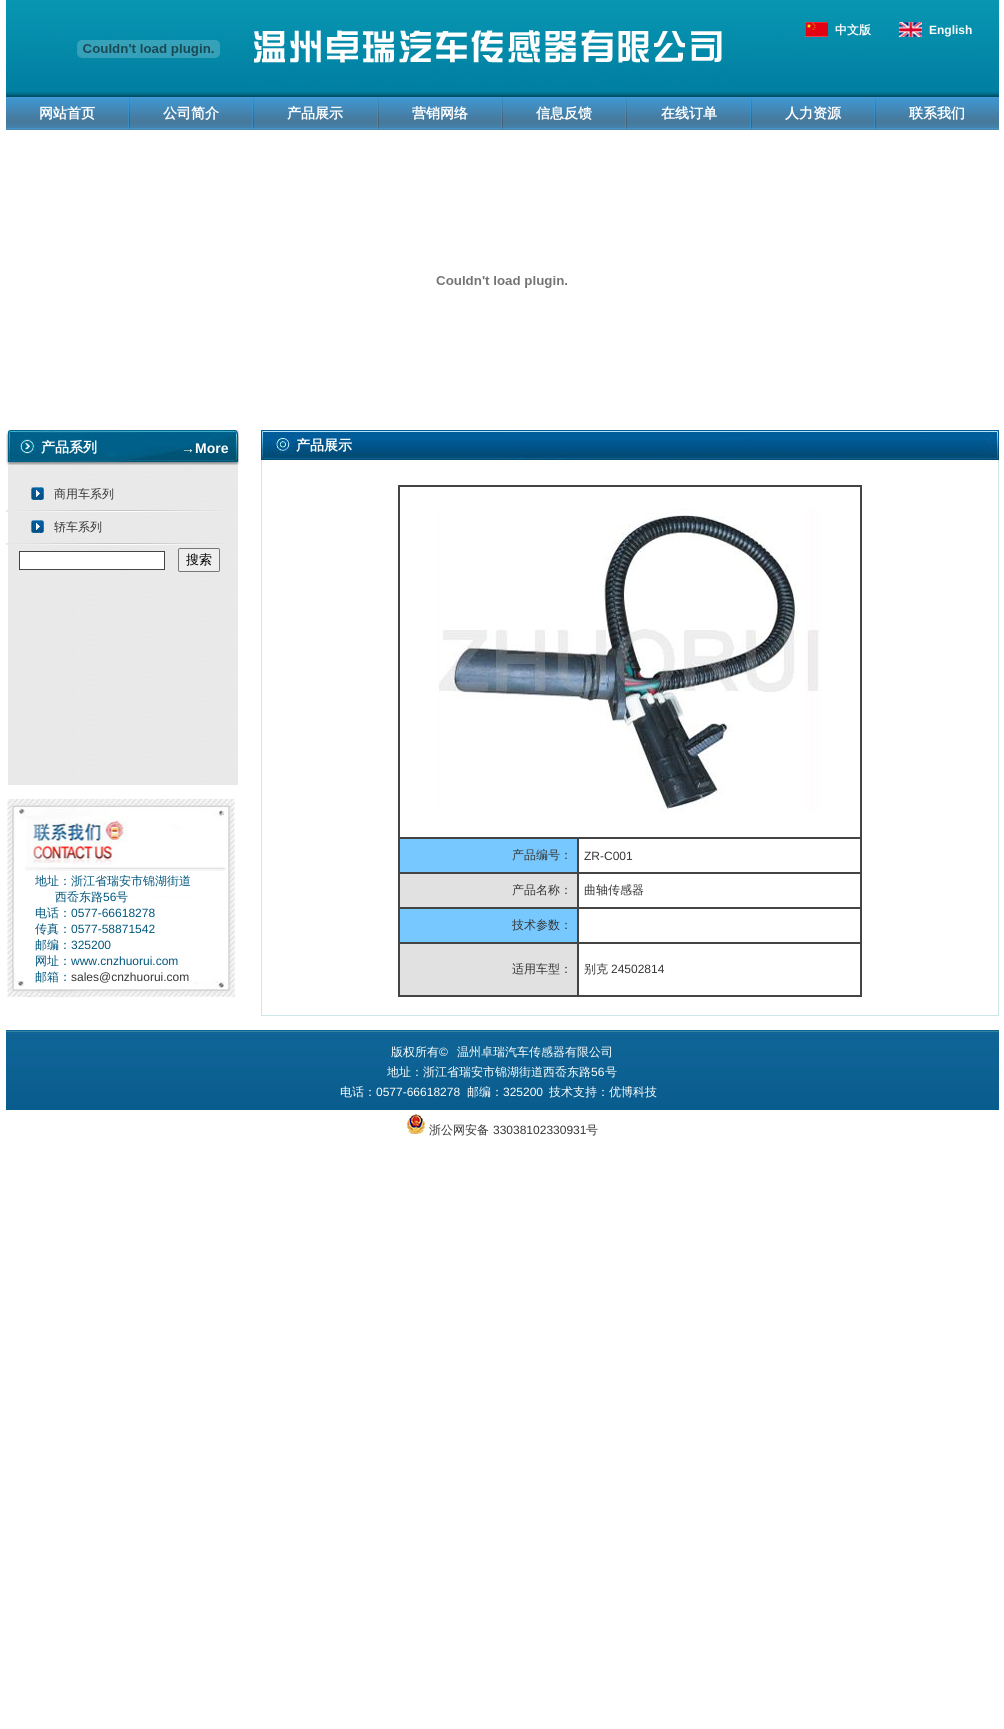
import math
import cairo

surface = cairo.ImageSurface(cairo.FORMAT_RGB24, 1004, 1729)
ctx = cairo.Context(surface)
options = cairo.FontOptions()
options.set_hint_metrics(cairo.HINT_METRICS_OFF)
options.set_hint_style(cairo.HINT_STYLE_NONE)
ctx.set_font_options(options)
ctx.set_miter_limit(4)


def set_color(code):
    ctx.set_source_rgb(*(v / 255 for v in bytes.fromhex(code[-6:])))


def draw_text(x, y, s, family, size, color, bold=False, italic=False):
    ctx.select_font_face(family, cairo.FONT_SLANT_ITALIC if italic else cairo.FONT_SLANT_NORMAL, cairo.FONT_WEIGHT_BOLD if bold else cairo.FONT_WEIGHT_NORMAL)
    ctx.set_font_size(size)
    set_color(color)
    ctx.move_to(x, y)
    ctx.show_text(s)


def fill_rect(x, y, w, h, color):
    set_color(color)
    ctx.rectangle(x, y, w, h)
    ctx.fill()


def rounded_rect(x, y, w, h, r):
    ctx.new_sub_path()
    for i, (u, v) in enumerate([(x + w - r, y + h - r), (x + r, y + h - r), (x + r, y + r), (x + w - r, y + r)]):
        ctx.arc(u, v, r, i * math.pi / 2, (i + 1) * math.pi / 2)
    ctx.close_path()


def draw_image(path, x, y, w, h):
    ctx.save()
    ctx.set_source_surface(cairo.ImageSurface.create_from_png(path), x, y)
    ctx.rectangle(x, y, w, h)
    ctx.fill()
    ctx.restore()


set_color("#ffffff")
ctx.paint()
draw_image("assets/img1.png", 6, 0, 993, 97)
draw_image("assets/img2.png", 77, 40, 143, 18)
draw_image("assets/img3.png", 249, 24, 482, 60)
draw_image("assets/img4.png", 805, 22, 23, 15)
draw_text(835, 34, "中文版", "WenQuanYi Zen Hei", 12, "#ffffff", bold=True)
draw_image("assets/img5.png", 899, 22, 23, 15)
draw_text(929, 34, "English", "Liberation Sans", 12, "#ffffff", bold=True)
draw_image("assets/img6.png", 6, 97, 993, 33)
draw_text(39, 118, "网站首页", "WenQuanYi Zen Hei", 14, "#ffffff", bold=True)
draw_image("assets/img7.png", 128, 97, 2, 33)
draw_text(163, 118, "公司简介", "WenQuanYi Zen Hei", 14, "#ffffff", bold=True)
draw_image("assets/img7.png", 252, 97, 2, 33)
draw_text(287, 118, "产品展示", "WenQuanYi Zen Hei", 14, "#ffffff", bold=True)
draw_image("assets/img7.png", 377, 97, 2, 33)
draw_text(412, 118, "营销网络", "WenQuanYi Zen Hei", 14, "#ffffff", bold=True)
draw_image("assets/img7.png", 501, 97, 2, 33)
draw_text(536, 118, "信息反馈", "WenQuanYi Zen Hei", 14, "#ffffff", bold=True)
draw_image("assets/img7.png", 625, 97, 2, 33)
draw_text(661, 118, "在线订单", "WenQuanYi Zen Hei", 14, "#ffffff", bold=True)
draw_image("assets/img7.png", 750, 97, 2, 33)
draw_text(785, 118, "人力资源", "WenQuanYi Zen Hei", 14, "#ffffff", bold=True)
draw_image("assets/img7.png", 874, 97, 2, 33)
draw_text(909, 118, "联系我们", "WenQuanYi Zen Hei", 14, "#ffffff", bold=True)
draw_image("assets/img8.png", 436, 276, 131, 12)
draw_image("assets/img9.png", 6, 430, 233, 35)
draw_text(41, 452, "产品系列", "WenQuanYi Zen Hei", 14, "#ffffff", bold=True)
draw_text(181, 453, "→More", "Liberation Sans", 14, "#ffffff", bold=True)
draw_image("assets/img10.png", 8, 465, 230, 320)
draw_image("assets/img11.png", 31, 487, 13, 13)
draw_text(54, 498, "商用车系列", "WenQuanYi Zen Hei Medium", 12, "#363636")
draw_image("assets/img12.png", 6, 510, 215, 2)
draw_image("assets/img11.png", 31, 520, 13, 13)
draw_text(54, 531, "轿车系列", "WenQuanYi Zen Hei Medium", 12, "#363636")
draw_image("assets/img13.png", 6, 543, 217, 2)
set_color("#ffffff")
ctx.rectangle(19.5, 551.5, 145, 18)
ctx.fill_preserve()
set_color("#444444")
ctx.set_line_width(1)
ctx.stroke()
set_color("#efefef")
rounded_rect(178.5, 548.5, 41, 23, 1.5)
ctx.fill_preserve()
set_color("#767676")
ctx.stroke()
draw_text(186, 564, "搜索", "WenQuanYi Zen Hei Medium", 13, "#000000")
draw_image("assets/img14.png", 7, 799, 229, 199)
draw_text(35, 885, "地址：浙江省瑞安市锦湖街道", "WenQuanYi Zen Hei Medium", 12, "#01567d")
draw_text(55, 901, "西岙东路", "WenQuanYi Zen Hei Medium", 12, "#01567d")
draw_text(103, 901, "56", "Liberation Sans", 12, "#01567d")
draw_text(116, 901, "号", "WenQuanYi Zen Hei Medium", 12, "#01567d")
draw_text(35, 917, "电话：", "WenQuanYi Zen Hei Medium", 12, "#01567d")
draw_text(71, 917, "0577-66618278", "Liberation Sans", 12, "#01567d")
draw_text(35, 933, "传真：", "WenQuanYi Zen Hei Medium", 12, "#01567d")
draw_text(71, 933, "0577-58871542", "Liberation Sans", 12, "#01567d")
draw_text(35, 949, "邮编：", "WenQuanYi Zen Hei Medium", 12, "#01567d")
draw_text(71, 949, "325200", "Liberation Sans", 12, "#01567d")
draw_text(35, 965, "网址：", "WenQuanYi Zen Hei Medium", 12, "#01567d")
draw_text(71, 965, "www.cnzhuorui.com", "Liberation Sans", 12, "#01567d")
draw_text(35, 981, "邮箱：", "WenQuanYi Zen Hei Medium", 12, "#01567d")
draw_text(71, 981, "sales@cnzhuorui.com", "Liberation Sans", 12, "#363636")
draw_image("assets/img15.png", 261, 430, 738, 30)
draw_text(296, 450, "产品展示", "WenQuanYi Zen Hei", 14, "#ffffff", bold=True)
fill_rect(998, 460, 1, 556, "#cbe7e8")
fill_rect(261, 1015, 738, 1, "#cbe7e8")
fill_rect(261, 460, 1, 556, "#cbe7e8")
ctx.rectangle(398.5, 485.5, 463, 511)
set_color("#444444")
ctx.stroke()
ctx.rectangle(399.5, 486.5, 461, 351)
ctx.stroke()
draw_image("assets/img16.png", 437, 508, 384, 304)
set_color("#76c8fe")
ctx.rectangle(399.5, 838.5, 178, 34)
ctx.fill_preserve()
set_color("#444444")
ctx.stroke()
draw_text(512, 859, "产品编号：", "WenQuanYi Zen Hei Medium", 12, "#363636")
ctx.rectangle(578.5, 838.5, 282, 34)
set_color("#444444")
ctx.stroke()
draw_text(584, 860, "ZR-C001", "Liberation Sans", 12, "#363636")
set_color("#e1e1e1")
ctx.rectangle(399.5, 873.5, 178, 34)
ctx.fill_preserve()
set_color("#444444")
ctx.stroke()
draw_text(512, 894, "产品名称：", "WenQuanYi Zen Hei Medium", 12, "#363636")
ctx.rectangle(578.5, 873.5, 282, 34)
set_color("#444444")
ctx.stroke()
draw_text(584, 894, "曲轴传感器", "WenQuanYi Zen Hei Medium", 12, "#363636")
set_color("#76c8fe")
ctx.rectangle(399.5, 908.5, 178, 34)
ctx.fill_preserve()
set_color("#444444")
ctx.stroke()
draw_text(512, 929, "技术参数：", "WenQuanYi Zen Hei Medium", 12, "#363636")
ctx.rectangle(578.5, 908.5, 282, 34)
set_color("#444444")
ctx.stroke()
set_color("#e1e1e1")
ctx.rectangle(399.5, 943.5, 178, 52)
ctx.fill_preserve()
set_color("#444444")
ctx.stroke()
draw_text(512, 973, "适用车型：", "WenQuanYi Zen Hei Medium", 12, "#363636")
ctx.rectangle(578.5, 943.5, 282, 52)
set_color("#444444")
ctx.stroke()
draw_text(584, 973, "别克", "WenQuanYi Zen Hei Medium", 12, "#363636")
draw_text(611, 973, "24502814", "Liberation Sans", 12, "#363636")
draw_image("assets/img17.png", 6, 1030, 993, 80)
draw_text(391, 1056, "版权所有", "WenQuanYi Zen Hei Medium", 12, "#ffffff")
draw_text(439, 1056, "©", "Liberation Sans", 12, "#ffffff")
draw_text(457, 1056, "温州卓瑞汽车传感器有限公司", "WenQuanYi Zen Hei Medium", 12, "#ffffff")
draw_text(387, 1076, "地址：浙江省瑞安市锦湖街道西岙东路", "WenQuanYi Zen Hei Medium", 12, "#ffffff")
draw_text(591, 1076, "56", "Liberation Sans", 12, "#ffffff")
draw_text(605, 1076, "号", "WenQuanYi Zen Hei Medium", 12, "#ffffff")
draw_text(340, 1096, "电话：", "WenQuanYi Zen Hei Medium", 12, "#ffffff")
draw_text(376, 1096, "0577-66618278", "Liberation Sans", 12, "#ffffff")
draw_text(467, 1096, "邮编：", "WenQuanYi Zen Hei Medium", 12, "#ffffff")
draw_text(503, 1096, "325200", "Liberation Sans", 12, "#ffffff")
draw_text(549, 1096, "技术支持：优博科技", "WenQuanYi Zen Hei Medium", 12, "#ffffff")
draw_image("assets/img18.png", 407, 1114, 18, 20)
draw_text(429, 1134, "浙公网安备", "WenQuanYi Zen Hei Medium", 12, "#363636")
draw_text(493, 1134, "33038102330931", "Liberation Sans", 12, "#363636")
draw_text(586, 1134, "号", "WenQuanYi Zen Hei Medium", 12, "#363636")
surface.write_to_png("output.png")
